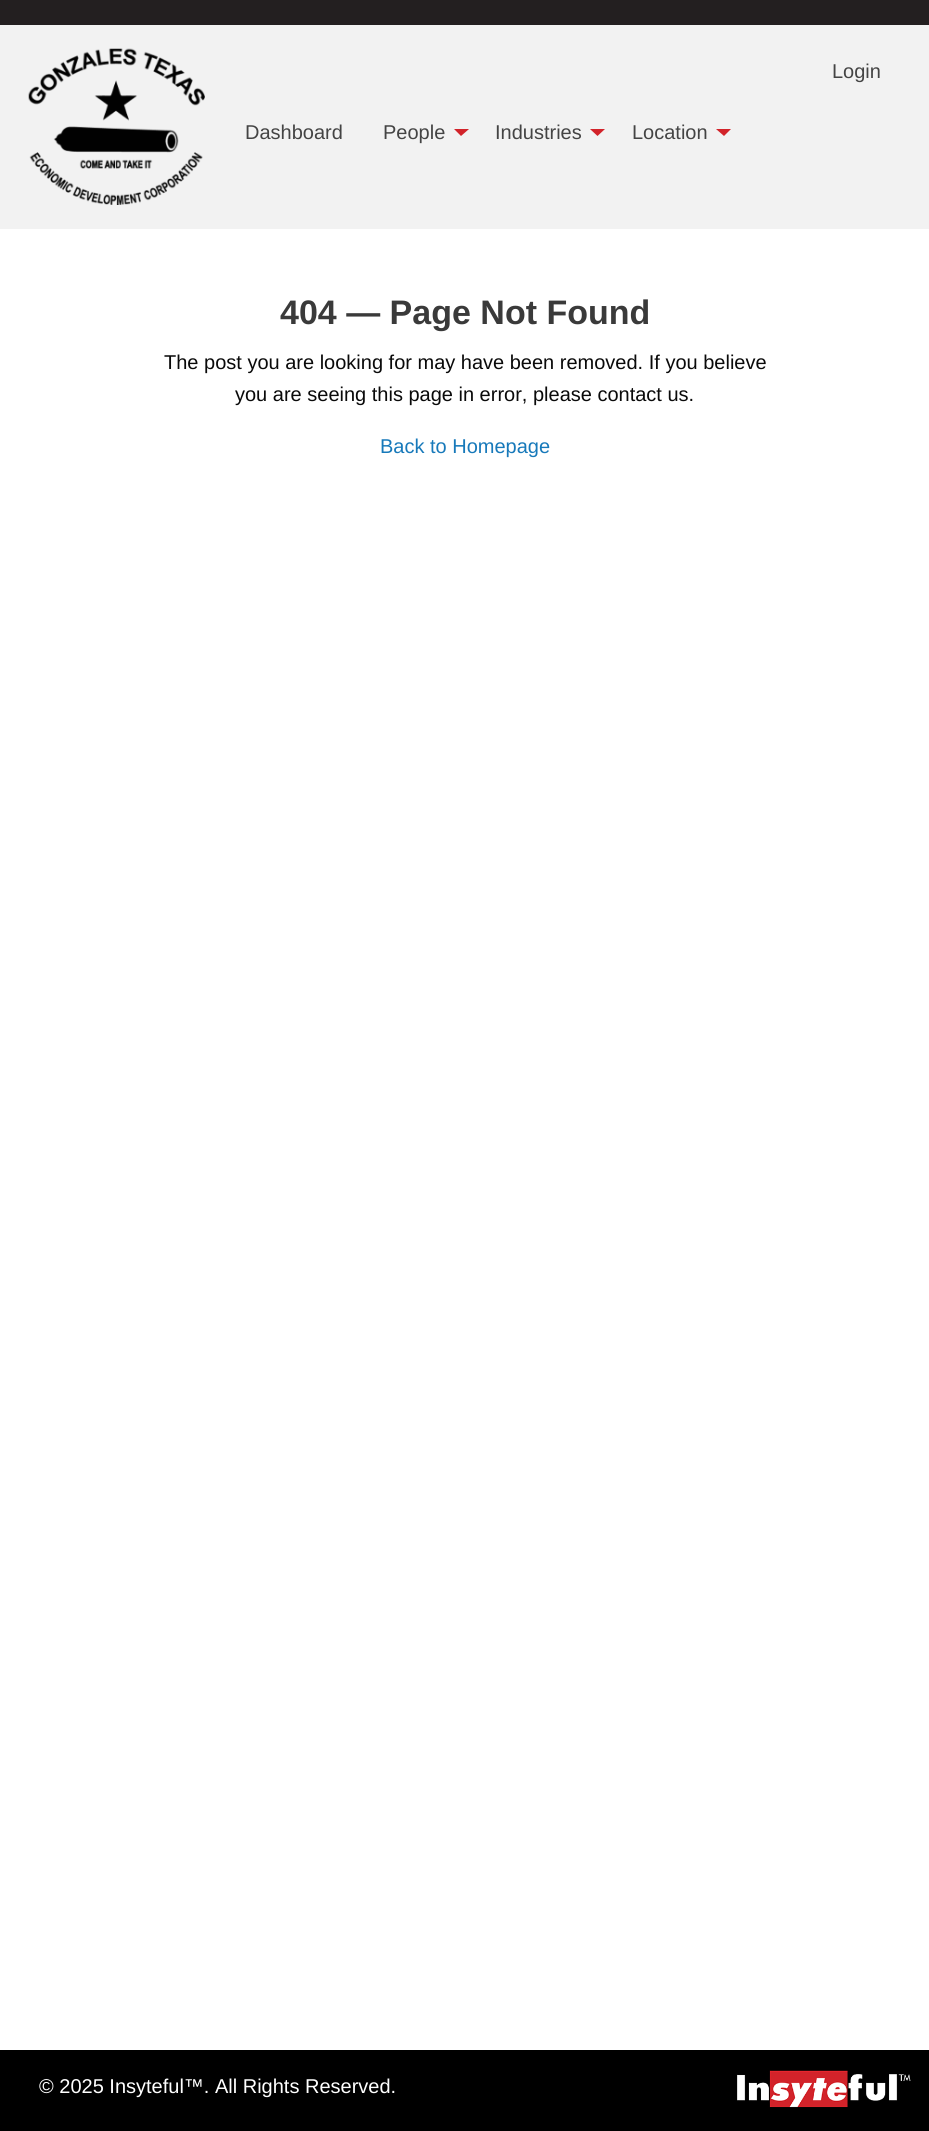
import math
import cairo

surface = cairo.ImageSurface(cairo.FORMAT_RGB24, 929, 2131)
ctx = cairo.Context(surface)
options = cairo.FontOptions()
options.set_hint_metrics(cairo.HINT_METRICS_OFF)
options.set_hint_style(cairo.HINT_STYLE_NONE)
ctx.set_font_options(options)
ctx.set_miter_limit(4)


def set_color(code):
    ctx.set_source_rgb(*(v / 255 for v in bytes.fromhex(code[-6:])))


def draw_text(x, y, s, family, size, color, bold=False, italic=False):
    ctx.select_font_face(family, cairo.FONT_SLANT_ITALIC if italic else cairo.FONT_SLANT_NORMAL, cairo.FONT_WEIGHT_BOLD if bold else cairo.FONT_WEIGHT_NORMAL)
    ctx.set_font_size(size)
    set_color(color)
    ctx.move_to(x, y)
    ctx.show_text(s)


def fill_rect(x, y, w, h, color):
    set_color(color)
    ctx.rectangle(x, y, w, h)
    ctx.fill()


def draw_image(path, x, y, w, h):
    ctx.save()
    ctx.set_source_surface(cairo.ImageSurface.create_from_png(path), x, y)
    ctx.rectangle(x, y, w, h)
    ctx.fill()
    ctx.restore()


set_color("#ffffff")
ctx.paint()
fill_rect(0, 25, 929, 204, "#f2f2f2")
fill_rect(0, 0, 929, 25, "#231f20")
draw_text(832, 78, "Login", "Liberation Sans", 20, "#444444")
draw_image("assets/img1.png", 28, 48, 177, 157)
draw_text(245, 139, "Dashboard", "Liberation Sans", 20, "#444444")
draw_text(383, 139, "People", "Liberation Sans", 20, "#444444")
set_color("#d2232a")
ctx.new_path()
ctx.move_to(454, 129)
ctx.line_to(469, 129)
ctx.line_to(461, 136)
ctx.close_path()
ctx.fill()
draw_text(495, 139, "Industries", "Liberation Sans", 20, "#444444")
set_color("#d2232a")
ctx.new_path()
ctx.move_to(590, 129)
ctx.line_to(605, 129)
ctx.line_to(597.5, 136)
ctx.close_path()
ctx.fill()
draw_text(632, 139, "Location", "Liberation Sans", 20, "#444444")
set_color("#d2232a")
ctx.new_path()
ctx.move_to(716, 129)
ctx.line_to(731, 129)
ctx.line_to(724, 136)
ctx.close_path()
ctx.fill()
draw_text(280, 324, "404 — Page Not Found", "Liberation Sans", 34, "#3a3a3a", bold=True)
draw_text(164, 369, "The post you are looking for may have been removed. If you believe", "Liberation Sans", 20, "#0a0a0a")
draw_text(235, 401, "you are seeing this page in error, please contact us.", "Liberation Sans", 20, "#0a0a0a")
draw_text(380, 453, "Back to Homepage", "Liberation Sans", 20, "#1779ba")
fill_rect(0, 2050, 929, 81, "#000000")
draw_text(39, 2093, "© 2025 Insyteful™. All Rights Reserved.", "Liberation Sans", 20, "#ffffff")
draw_image("assets/img2.png", 737, 2070, 174, 38)
surface.write_to_png("output.png")
